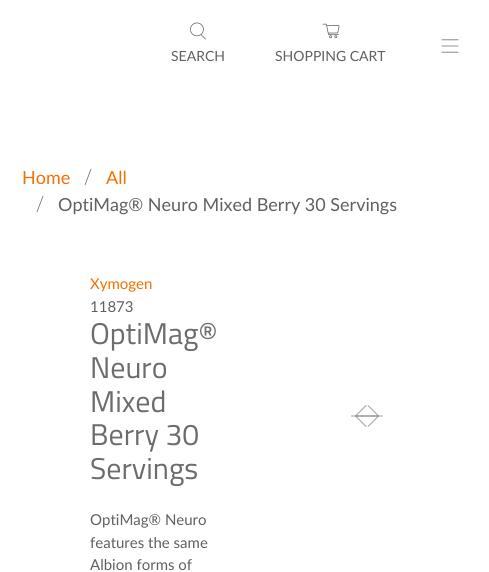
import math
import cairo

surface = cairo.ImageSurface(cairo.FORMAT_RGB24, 489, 572)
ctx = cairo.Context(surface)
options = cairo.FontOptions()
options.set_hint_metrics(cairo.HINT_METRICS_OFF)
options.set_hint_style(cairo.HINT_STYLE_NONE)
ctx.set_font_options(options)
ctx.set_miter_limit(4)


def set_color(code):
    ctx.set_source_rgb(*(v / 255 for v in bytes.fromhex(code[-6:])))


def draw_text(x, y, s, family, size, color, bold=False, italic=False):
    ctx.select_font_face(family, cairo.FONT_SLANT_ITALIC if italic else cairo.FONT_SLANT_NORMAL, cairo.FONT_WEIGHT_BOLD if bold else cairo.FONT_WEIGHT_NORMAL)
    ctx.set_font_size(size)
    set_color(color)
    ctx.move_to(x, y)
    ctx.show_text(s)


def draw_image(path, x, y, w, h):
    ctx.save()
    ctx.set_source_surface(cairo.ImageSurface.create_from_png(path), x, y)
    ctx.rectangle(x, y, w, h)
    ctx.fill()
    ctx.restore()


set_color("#ffffff")
ctx.paint()
draw_image("assets/img1.png", 441, 39, 18, 14)
draw_image("assets/img2.png", 190, 22, 16, 18)
draw_text(171, 61, "SEARCH", "Lato", 14, "#606060")
draw_image("assets/img3.png", 322, 23, 18, 16)
draw_text(275, 61, "SHOPPING CART", "Lato", 14, "#606060")
draw_text(22, 184, "Home", "Lato", 18, "#f56e00")
draw_image("assets/img4.png", 84, 168, 8, 18)
draw_text(106, 184, "All", "Lato", 18, "#f56e00")
draw_image("assets/img4.png", 36, 195, 8, 18)
draw_text(58, 211, "OptiMag® Neuro Mixed Berry 30 Servings", "Lato", 18, "#606060")
draw_text(90, 289, "Xymogen", "Lato", 15, "#f56e00")
draw_text(90, 312, "11873", "Lato", 15, "#606060")
draw_text(90, 344, "OptiMag®", "Titillium Web", 30, "#6c6c6c")
draw_text(90, 378, "Neuro", "Titillium Web", 30, "#6c6c6c")
draw_text(90, 412, "Mixed", "Titillium Web", 30, "#6c6c6c")
draw_text(90, 445, "Berry 30", "Titillium Web", 30, "#6c6c6c")
draw_text(90, 479, "Servings", "Titillium Web", 30, "#6c6c6c")
draw_text(90, 525, "OptiMag® Neuro", "Lato", 15, "#606060")
draw_text(90, 548, "features the same", "Lato", 15, "#606060")
draw_text(90, 570, "Albion forms of", "Lato", 15, "#606060")
draw_image("assets/img6.png", 355, 405, 28, 22)
draw_image("assets/img5.png", 351, 405, 28, 22)
surface.write_to_png("output.png")
